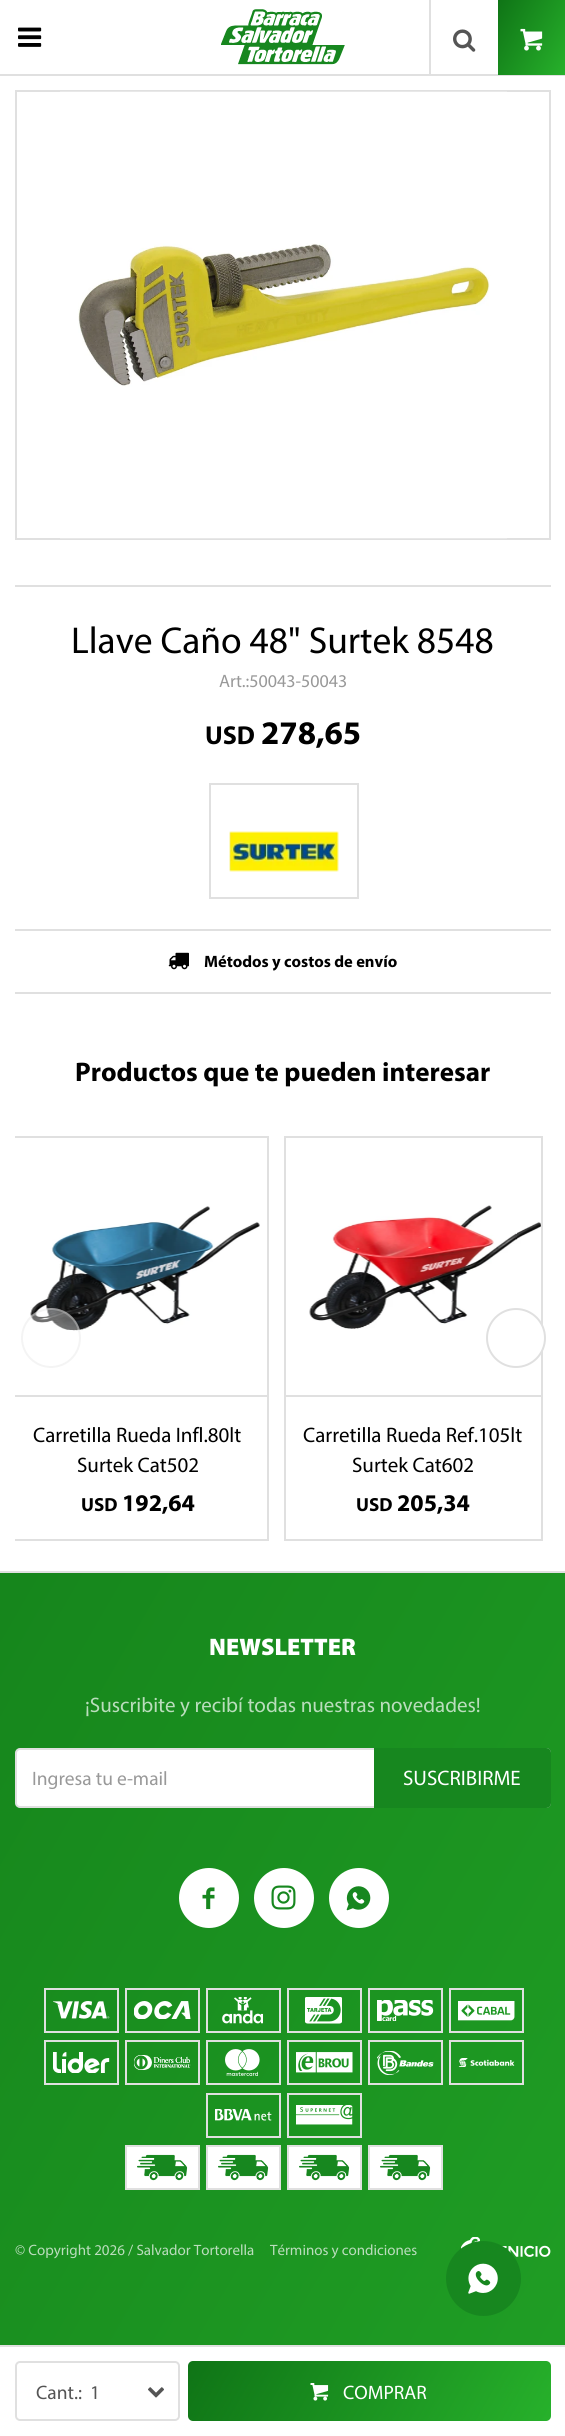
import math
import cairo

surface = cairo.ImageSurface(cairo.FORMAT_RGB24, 565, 2436)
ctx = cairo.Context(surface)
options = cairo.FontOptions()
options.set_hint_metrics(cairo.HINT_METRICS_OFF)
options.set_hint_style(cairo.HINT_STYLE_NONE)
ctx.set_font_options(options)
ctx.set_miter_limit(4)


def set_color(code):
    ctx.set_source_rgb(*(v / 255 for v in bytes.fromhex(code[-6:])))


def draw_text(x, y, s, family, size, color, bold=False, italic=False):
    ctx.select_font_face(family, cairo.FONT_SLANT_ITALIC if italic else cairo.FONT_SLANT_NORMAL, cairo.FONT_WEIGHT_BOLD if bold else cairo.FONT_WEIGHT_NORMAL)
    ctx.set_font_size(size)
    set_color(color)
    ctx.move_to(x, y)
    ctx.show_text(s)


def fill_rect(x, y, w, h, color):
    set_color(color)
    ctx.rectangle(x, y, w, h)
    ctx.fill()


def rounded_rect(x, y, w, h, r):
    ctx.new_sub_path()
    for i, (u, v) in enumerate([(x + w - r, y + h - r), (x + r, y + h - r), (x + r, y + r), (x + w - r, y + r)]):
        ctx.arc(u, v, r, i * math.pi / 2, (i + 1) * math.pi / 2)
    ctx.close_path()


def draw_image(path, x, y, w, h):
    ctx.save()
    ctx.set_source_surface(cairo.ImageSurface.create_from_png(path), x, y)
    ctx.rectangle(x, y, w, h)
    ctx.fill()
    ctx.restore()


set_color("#ffffff")
ctx.paint()
draw_image("assets/img1.png", 18, 27, 24, 20)
draw_image("assets/img2.png", 221, 9, 124, 56)
fill_rect(0, 74, 565, 2, "#e0e0e0")
fill_rect(429, 0, 2, 75, "#e0e0e0")
draw_image("assets/img3.png", 453, 29, 23, 23)
gradient = cairo.LinearGradient(490, 14, 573, 61)
gradient.add_color_stop_rgba(0, 0.059, 0.455, 0.086, 1)
gradient.add_color_stop_rgba(1, 0.153, 0.694, 0.169, 1)
ctx.set_source(gradient)
ctx.rectangle(498, 0, 67, 75)
ctx.fill()
draw_image("assets/img4.png", 520, 28, 23, 23)
ctx.rectangle(16, 91, 534, 448)
set_color("#e0e0e0")
ctx.stroke()
draw_image("assets/img5.png", 60, 91, 447, 448)
fill_rect(15, 585, 536, 2, "#e0e0e0")
draw_text(71, 653, "Llave Caño 48\" Surtek 8548", "Myriad", 37.5, "#000000")
draw_text(219, 687, "Art.:50043-50043", "Myriad", 18, "#999999")
draw_text(205, 744, "USD", "Myriad", 26, "#000000", bold=True)
draw_text(261, 744, "278,65", "Myriad", 33, "#000000", bold=True)
ctx.rectangle(210, 784, 148, 114)
set_color("#e0e0e0")
ctx.stroke()
draw_image("assets/img6.png", 229, 831, 110, 41)
fill_rect(15, 929, 536, 2, "#e0e0e0")
fill_rect(15, 992, 536, 2, "#e0e0e0")
draw_image("assets/img7.png", 168, 952, 21, 18)
draw_text(204, 967, "Métodos y costos de envío", "Myriad", 16.5, "#000000", bold=True)
fill_rect(0, 2345, 565, 2, "#e0e0e0")
draw_image("assets/img8.png", 148, 2387, 16, 11)
rounded_rect(16, 2362, 163, 58, 4)
ctx.stroke()
draw_text(36, 2399, "Cant.:", "Myriad", 19.5, "#555555")
draw_text(90, 2399, "1", "Myriad", 19.5, "#555555")
gradient = cairo.LinearGradient(220, 2305, 518, 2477)
gradient.add_color_stop_rgba(0, 0.059, 0.455, 0.086, 1)
gradient.add_color_stop_rgba(1, 0.153, 0.694, 0.169, 1)
ctx.set_source(gradient)
rounded_rect(188, 2361, 363, 60, 5)
ctx.fill()
draw_image("assets/img9.png", 310, 2383, 19, 18)
draw_text(343, 2399, "COMPRAR", "Myriad", 19.5, "#ffffff")
draw_text(75, 1081, "Productos que te pueden interesar", "Myriad", 27, "#000000", bold=True)
draw_image("assets/img10.png", 30, 1206, 230, 125)
fill_rect(15, 1395, 254, 2, "#e0e0e0")
ctx.save()
ctx.rectangle(15, 1136, 536, 405)
ctx.clip()
ctx.rectangle(9, 1137, 259, 403)
ctx.stroke()
ctx.restore()
ctx.set_source_rgba(1, 1, 1, 0.35)
ctx.arc(51, 1338, 30, 0, 2 * math.pi)
ctx.fill()
ctx.arc(51, 1338, 29, 0, 2 * math.pi)
ctx.set_source_rgba(0.878, 0.878, 0.878, 0.35)
ctx.stroke()
draw_image("assets/img11.png", 309, 1205, 232, 124)
fill_rect(284, 1395, 259, 2, "#e0e0e0")
ctx.rectangle(285, 1137, 257, 403)
ctx.stroke()
set_color("#ffffff")
ctx.arc(516, 1338, 29, 0, 2 * math.pi)
ctx.fill_preserve()
set_color("#e0e0e0")
ctx.stroke()
draw_text(33, 1442, "Carretilla Rueda Infl.80lt", "Myriad", 21, "#000000")
draw_text(77, 1472, "Surtek Cat502", "Myriad", 21, "#000000")
draw_text(81, 1511, "USD", "Myriad", 19, "#000000", bold=True)
draw_text(122, 1511, "192,64", "Myriad", 24, "#000000", bold=True)
draw_text(303, 1442, "Carretilla Rueda Ref.105lt", "Myriad", 21, "#000000")
draw_text(352, 1472, "Surtek Cat602", "Myriad", 21, "#000000")
draw_text(356, 1511, "USD", "Myriad", 19, "#000000", bold=True)
draw_text(397, 1511, "205,34", "Myriad", 24, "#000000", bold=True)
gradient = cairo.LinearGradient(-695, 1477, 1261, 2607)
gradient.add_color_stop_rgba(0, 0.059, 0.455, 0.086, 1)
gradient.add_color_stop_rgba(1, 0.153, 0.694, 0.169, 1)
ctx.set_source(gradient)
ctx.rectangle(0, 1573, 565, 772)
ctx.fill()
fill_rect(0, 1571, 565, 2, "#e0e0e0")
draw_text(209, 1655, "NEWSLETTER", "Myriad Black", 24, "#ffffff")
draw_text(85, 1712, "¡Suscribite y recibí todas nuestras novedades!", "Myriad", 21, "#baddbc")
set_color("#ffffff")
rounded_rect(16, 1749, 534, 58, 4)
ctx.fill_preserve()
set_color("#e0e0e0")
ctx.stroke()
draw_text(32, 1785, "Ingresa tu e-mail", "Myriad", 19.5, "#999999")
set_color("#17871f")
ctx.new_path()
ctx.move_to(374, 1748)
ctx.line_to(546, 1748)
ctx.curve_to(549, 1748, 551, 1750, 551, 1753)
ctx.line_to(551, 1803)
ctx.curve_to(551, 1806, 549, 1808, 546, 1808)
ctx.line_to(374, 1808)
ctx.close_path()
ctx.fill()
draw_text(403, 1785, "SUSCRIBIRME", "Myriad", 21, "#ffffff")
ctx.new_path()
ctx.arc(209, 1898, 30, 0, 2 * math.pi)
ctx.fill()
draw_image("assets/img12.png", 202, 1887, 13, 23)
ctx.arc(284, 1898, 30, 0, 2 * math.pi)
ctx.fill()
draw_image("assets/img13.png", 271, 1885, 25, 25)
ctx.arc(359, 1898, 30, 0, 2 * math.pi)
ctx.fill()
draw_image("assets/img14.png", 346, 1886, 25, 25)
ctx.rectangle(45, 1989, 73, 43)
set_color("#e0e0e0")
ctx.stroke()
draw_image("assets/img15.png", 53, 2001, 57, 18)
ctx.rectangle(126, 1989, 73, 43)
ctx.stroke()
draw_image("assets/img16.png", 134, 2001, 57, 18)
ctx.rectangle(207, 1989, 73, 43)
ctx.stroke()
draw_image("assets/img17.png", 222, 1997, 41, 27)
ctx.rectangle(288, 1989, 73, 43)
ctx.stroke()
draw_image("assets/img18.png", 305, 1997, 37, 27)
ctx.rectangle(369, 1989, 73, 43)
ctx.stroke()
draw_image("assets/img19.png", 377, 2000, 57, 21)
ctx.rectangle(450, 1989, 73, 43)
ctx.stroke()
draw_image("assets/img20.png", 458, 2001, 57, 20)
ctx.rectangle(45, 2041, 73, 43)
ctx.stroke()
draw_image("assets/img21.png", 53, 2052, 57, 21)
ctx.rectangle(126, 2041, 73, 43)
ctx.stroke()
draw_image("assets/img22.png", 134, 2055, 57, 15)
ctx.rectangle(207, 2041, 73, 43)
ctx.stroke()
draw_image("assets/img23.png", 225, 2049, 35, 27)
ctx.rectangle(288, 2041, 73, 43)
ctx.stroke()
draw_image("assets/img24.png", 296, 2052, 57, 21)
ctx.rectangle(369, 2041, 73, 43)
ctx.stroke()
draw_image("assets/img25.png", 377, 2051, 57, 24)
ctx.rectangle(450, 2041, 73, 43)
ctx.stroke()
draw_image("assets/img26.png", 458, 2058, 57, 9)
ctx.rectangle(207, 2094, 73, 43)
ctx.stroke()
draw_image("assets/img27.png", 215, 2109, 57, 12)
ctx.rectangle(288, 2094, 73, 43)
ctx.stroke()
draw_image("assets/img28.png", 296, 2105, 57, 20)
set_color("#ffffff")
ctx.rectangle(126, 2146, 73, 43)
ctx.fill_preserve()
set_color("#e0e0e0")
ctx.stroke()
draw_image("assets/img29.png", 137, 2154, 51, 27)
set_color("#ffffff")
ctx.rectangle(207, 2146, 73, 43)
ctx.fill_preserve()
set_color("#e0e0e0")
ctx.stroke()
draw_image("assets/img30.png", 218, 2154, 51, 27)
set_color("#ffffff")
ctx.rectangle(288, 2146, 73, 43)
ctx.fill_preserve()
set_color("#e0e0e0")
ctx.stroke()
draw_image("assets/img31.png", 299, 2154, 51, 27)
set_color("#ffffff")
ctx.rectangle(369, 2146, 73, 43)
ctx.fill_preserve()
set_color("#e0e0e0")
ctx.stroke()
draw_image("assets/img29.png", 380, 2154, 51, 27)
draw_text(15, 2255, "© Copyright 2026 / Salvador Tortorella", "Myriad", 15, "#baddbc")
draw_text(270, 2255, "Términos y condiciones", "Myriad", 15, "#baddbc")
draw_image("assets/img32.png", 461, 2237, 90, 20)
set_color("#17871f")
ctx.arc(483.5, 2278.5, 37.5, 0, 2 * math.pi)
ctx.fill()
draw_image("assets/img33.png", 468, 2263, 30, 31)
surface.write_to_png("output.png")
